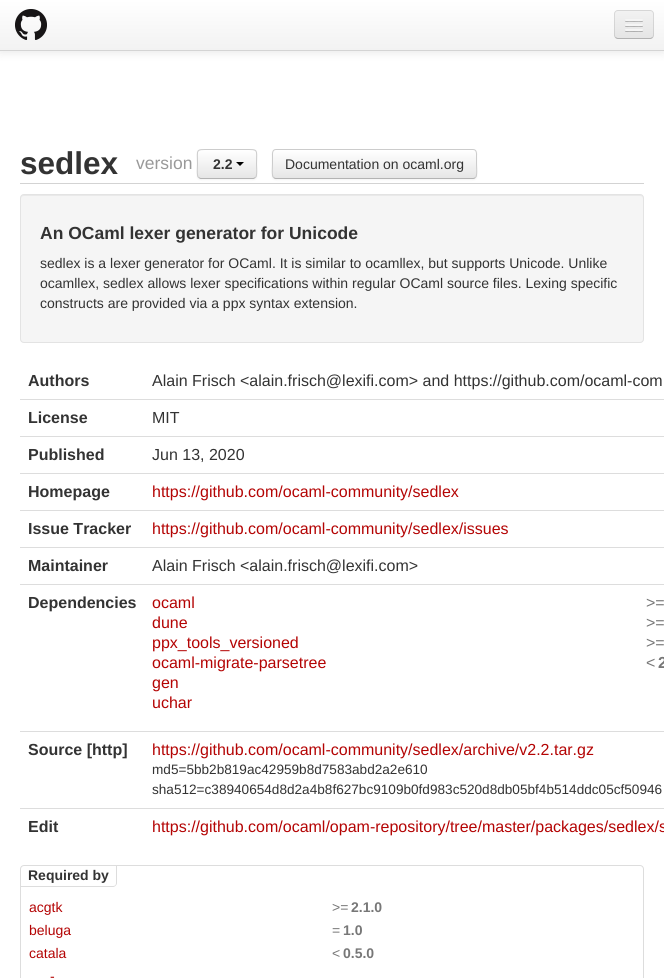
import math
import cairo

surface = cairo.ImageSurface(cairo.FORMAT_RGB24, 664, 978)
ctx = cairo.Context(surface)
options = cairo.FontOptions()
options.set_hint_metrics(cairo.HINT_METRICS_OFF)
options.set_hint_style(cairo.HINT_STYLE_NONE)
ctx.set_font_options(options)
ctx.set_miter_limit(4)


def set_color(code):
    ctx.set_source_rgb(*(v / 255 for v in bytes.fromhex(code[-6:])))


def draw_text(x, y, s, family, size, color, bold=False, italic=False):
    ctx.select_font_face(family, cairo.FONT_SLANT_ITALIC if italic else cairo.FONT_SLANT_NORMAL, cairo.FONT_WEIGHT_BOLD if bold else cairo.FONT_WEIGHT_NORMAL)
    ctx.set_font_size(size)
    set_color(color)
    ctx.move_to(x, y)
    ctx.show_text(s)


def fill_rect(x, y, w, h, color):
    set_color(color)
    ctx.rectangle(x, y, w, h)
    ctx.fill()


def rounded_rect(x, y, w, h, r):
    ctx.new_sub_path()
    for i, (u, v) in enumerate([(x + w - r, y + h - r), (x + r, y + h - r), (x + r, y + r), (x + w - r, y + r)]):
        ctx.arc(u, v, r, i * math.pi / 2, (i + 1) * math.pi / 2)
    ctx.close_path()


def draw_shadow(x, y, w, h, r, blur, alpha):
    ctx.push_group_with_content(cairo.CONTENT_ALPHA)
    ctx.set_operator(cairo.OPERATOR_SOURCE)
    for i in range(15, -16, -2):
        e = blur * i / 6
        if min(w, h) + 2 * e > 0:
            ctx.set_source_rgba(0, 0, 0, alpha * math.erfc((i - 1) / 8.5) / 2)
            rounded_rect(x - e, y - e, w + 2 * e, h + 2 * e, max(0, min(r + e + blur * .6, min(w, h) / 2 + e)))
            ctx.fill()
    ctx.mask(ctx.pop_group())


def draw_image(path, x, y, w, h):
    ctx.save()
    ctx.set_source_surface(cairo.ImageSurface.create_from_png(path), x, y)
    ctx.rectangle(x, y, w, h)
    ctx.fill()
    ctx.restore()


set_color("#ffffff")
ctx.paint()
set_color("#000000")
draw_shadow(0, 1, 664, 51, 0, 5, 0.1)
gradient = cairo.LinearGradient(332, 0, 332, 50)
gradient.add_color_stop_rgba(0, 1, 1, 1, 1)
gradient.add_color_stop_rgba(1, 0.949, 0.949, 0.949, 1)
ctx.set_source(gradient)
ctx.rectangle(0, 0, 664, 50)
ctx.fill()
fill_rect(0, 50, 664, 1, "#d4d4d4")
draw_image("assets/img1.png", 15, 9, 32, 31)
set_color("#ededed")
rounded_rect(614, 10, 40, 29, 4)
ctx.fill()
ctx.save()
rounded_rect(614, 10, 40, 29, 4)
ctx.clip()
gradient = cairo.LinearGradient(634, 11, 634, 38)
gradient.add_color_stop_rgba(0, 0.949, 0.949, 0.949, 1)
gradient.add_color_stop_rgba(1, 0.898, 0.898, 0.898, 1)
ctx.set_source(gradient)
ctx.rectangle(614, 11, 40, 27)
ctx.fill()
ctx.restore()
ctx.new_path()
ctx.move_to(652.5, 37.5)
ctx.curve_to(652, 38, 651, 38.5, 650, 38.5)
ctx.line_to(618, 38.5)
ctx.curve_to(617, 38.5, 616, 38, 615.5, 37.5)
ctx.set_source_rgba(0, 0, 0, 0.25)
ctx.set_line_width(1)
ctx.stroke()
ctx.new_path()
ctx.move_to(615.5, 37.5)
ctx.curve_to(615, 37, 614.5, 36, 614.5, 35)
ctx.line_to(614.5, 14)
ctx.curve_to(614.5, 13, 615, 12, 615.5, 11.5)
ctx.curve_to(616, 11, 617, 10.5, 618, 10.5)
ctx.line_to(650, 10.5)
ctx.curve_to(651, 10.5, 652, 11, 652.5, 11.5)
ctx.curve_to(653, 12, 653.5, 13, 653.5, 14)
ctx.line_to(653.5, 35)
ctx.curve_to(653.5, 36, 653, 37, 652.5, 37.5)
ctx.set_source_rgba(0, 0, 0, 0.1)
ctx.stroke()
set_color("#b2b2b2")
ctx.new_path()
ctx.move_to(625, 20.5)
ctx.curve_to(624, 22.5, 628.5, 22, 628.5, 22)
ctx.line_to(639.5, 22)
ctx.curve_to(639.5, 22, 644, 22.5, 643, 20.5)
ctx.curve_to(642, 21.5, 635.5, 21, 634, 21)
ctx.curve_to(632.5, 21, 626, 21.5, 625, 20.5)
ctx.close_path()
ctx.fill()
set_color("#f5f5f5")
rounded_rect(625, 19, 18, 2, 1)
ctx.fill()
set_color("#b0b0b0")
ctx.new_path()
ctx.move_to(625, 25.5)
ctx.curve_to(624, 27.5, 628.5, 27, 628.5, 27)
ctx.line_to(639.5, 27)
ctx.curve_to(639.5, 27, 644, 27.5, 643, 25.5)
ctx.curve_to(642, 26.5, 635.5, 26, 634, 26)
ctx.curve_to(632.5, 26, 626, 26.5, 625, 25.5)
ctx.close_path()
ctx.fill()
set_color("#f5f5f5")
rounded_rect(625, 24, 18, 2, 1)
ctx.fill()
set_color("#aeaeae")
ctx.new_path()
ctx.move_to(625, 30.5)
ctx.curve_to(624, 32.5, 628.5, 32, 628.5, 32)
ctx.line_to(639.5, 32)
ctx.curve_to(639.5, 32, 644, 32.5, 643, 30.5)
ctx.curve_to(642, 31.5, 635.5, 31, 634, 31)
ctx.curve_to(632.5, 31, 626, 31.5, 625, 30.5)
ctx.close_path()
ctx.fill()
set_color("#f5f5f5")
rounded_rect(625, 29, 18, 2, 1)
ctx.fill()
fill_rect(20, 183, 624, 1, "#d3d3d3")
draw_text(20, 174, "sedlex", "Liberation Sans", 31.5, "#333333", bold=True)
draw_text(136, 169, "version", "Liberation Sans", 17.5, "#999999")
set_color("#000000")
draw_shadow(197, 150, 60, 30, 4, 1, 0.05)
set_color("#f5f5f5")
rounded_rect(197, 149, 60, 30, 4)
ctx.fill()
ctx.save()
rounded_rect(197, 149, 60, 30, 4)
ctx.clip()
gradient = cairo.LinearGradient(227, 150, 227, 178)
gradient.add_color_stop_rgba(0, 1, 1, 1, 1)
gradient.add_color_stop_rgba(1, 0.902, 0.902, 0.902, 1)
ctx.set_source(gradient)
ctx.rectangle(197, 150, 60, 28)
ctx.fill()
ctx.restore()
set_color("#ffffff")
ctx.new_path()
ctx.move_to(201, 151)
ctx.line_to(253, 151)
ctx.curve_to(255, 151, 256, 152, 256, 154)
ctx.curve_to(256, 148, 249, 150, 244, 150)
ctx.line_to(210, 150)
ctx.curve_to(205, 150, 198, 148, 198, 154)
ctx.curve_to(198, 152, 199, 151, 201, 151)
ctx.close_path()
ctx.fill()
ctx.new_path()
ctx.move_to(255.5, 177.5)
ctx.line_to(253.5, 178.5)
ctx.line_to(200.5, 178.5)
ctx.line_to(198.5, 177.5)
set_color("#b3b3b3")
ctx.stroke()
ctx.new_path()
ctx.move_to(198.5, 177.5)
ctx.curve_to(196.5, 175.5, 197.5, 167, 197.5, 164)
ctx.curve_to(197.5, 149, 195, 149.5, 209.5, 149.5)
ctx.line_to(244.5, 149.5)
ctx.curve_to(259, 149.5, 256.5, 149, 256.5, 164)
ctx.curve_to(256.5, 167, 257.5, 175.5, 255.5, 177.5)
set_color("#cccccc")
ctx.stroke()
draw_text(213, 169, "2.2", "Liberation Sans", 14, "#333333", bold=True)
set_color("#000000")
ctx.new_path()
ctx.move_to(236, 162)
ctx.line_to(244, 162)
ctx.line_to(240, 166)
ctx.close_path()
ctx.fill()
set_color("#000000")
draw_shadow(272, 150, 205, 30, 4, 1, 0.05)
ctx.save()
rounded_rect(272, 149, 205, 30, 4)
ctx.clip()
gradient = cairo.LinearGradient(375, 150, 375, 178)
gradient.add_color_stop_rgba(0, 1, 1, 1, 1)
gradient.add_color_stop_rgba(1, 0.902, 0.902, 0.902, 1)
ctx.set_source(gradient)
ctx.rectangle(272, 150, 205, 28)
ctx.fill()
ctx.restore()
ctx.new_path()
ctx.move_to(475.5, 177.5)
ctx.curve_to(475, 178, 474, 178.5, 473, 178.5)
ctx.line_to(276, 178.5)
ctx.curve_to(275, 178.5, 274, 178, 273.5, 177.5)
set_color("#b3b3b3")
ctx.stroke()
ctx.new_path()
ctx.move_to(273.5, 177.5)
ctx.curve_to(271.5, 175.5, 272.5, 167, 272.5, 164)
ctx.line_to(272.5, 156.5)
ctx.curve_to(272.5, 154, 272, 149.5, 276, 149.5)
ctx.line_to(473, 149.5)
ctx.curve_to(477, 149.5, 476.5, 154, 476.5, 156.5)
ctx.line_to(476.5, 164)
ctx.curve_to(476.5, 167, 477.5, 175.5, 475.5, 177.5)
set_color("#cccccc")
ctx.stroke()
draw_text(285, 169, "Documentation on ocaml.org", "Liberation Sans", 14, "#333333")
set_color("#f5f5f5")
rounded_rect(20, 194, 624, 149, 4)
ctx.fill()
set_color("#e9e9e9")
ctx.new_path()
ctx.move_to(24, 196)
ctx.line_to(640, 196)
ctx.curve_to(642, 196, 643, 197, 643, 199)
ctx.line_to(643, 198)
ctx.curve_to(643, 196, 642, 195, 640, 195)
ctx.line_to(24, 195)
ctx.curve_to(22, 195, 21, 196, 21, 198)
ctx.line_to(21, 199)
ctx.curve_to(21, 197, 22, 196, 24, 196)
ctx.close_path()
ctx.fill()
rounded_rect(20.5, 194.5, 623, 148, 3.5)
set_color("#e3e3e3")
ctx.stroke()
draw_text(40, 239, "An OCaml lexer generator for Unicode", "Liberation Sans", 17.5, "#333333", bold=True)
draw_text(40, 268, "sedlex is a lexer generator for OCaml. It is similar to ocamllex, but supports Unicode. Unlike", "Liberation Sans", 14, "#333333")
draw_text(40, 288, "ocamllex, sedlex allows lexer specifications within regular OCaml source files. Lexing specific", "Liberation Sans", 14, "#333333")
draw_text(40, 308, "constructs are provided via a ppx syntax extension.", "Liberation Sans", 14, "#333333")
draw_text(28, 386, "Authors", "Liberation Sans", 16, "#333333", bold=True)
draw_text(152, 386, "Alain Frisch <alain.frisch@lexifi.com> and https://github.com/ocaml-com", "Liberation Sans", 16, "#333333")
draw_text(28, 423, "License", "Liberation Sans", 16, "#333333", bold=True)
fill_rect(20, 399, 644, 1, "#dddddd")
draw_text(152, 423, "MIT", "Liberation Sans", 16, "#333333")
draw_text(28, 460, "Published", "Liberation Sans", 16, "#333333", bold=True)
fill_rect(20, 436, 644, 1, "#dddddd")
draw_text(152, 460, "Jun 13, 2020", "Liberation Sans", 16, "#333333")
draw_text(28, 497, "Homepage", "Liberation Sans", 16, "#333333", bold=True)
fill_rect(20, 473, 644, 1, "#dddddd")
draw_text(152, 497, "https://github.com/ocaml-community/sedlex", "Liberation Sans", 16, "#b40404")
draw_text(28, 534, "Issue Tracker", "Liberation Sans", 16, "#333333", bold=True)
fill_rect(20, 510, 644, 1, "#dddddd")
draw_text(152, 534, "https://github.com/ocaml-community/sedlex/issues", "Liberation Sans", 16, "#b40404")
draw_text(28, 571, "Maintainer", "Liberation Sans", 16, "#333333", bold=True)
fill_rect(20, 547, 644, 1, "#dddddd")
draw_text(152, 571, "Alain Frisch <alain.frisch@lexifi.com>", "Liberation Sans", 16, "#333333")
draw_text(28, 608, "Dependencies", "Liberation Sans", 16, "#333333", bold=True)
fill_rect(20, 584, 644, 1, "#dddddd")
draw_text(152, 608, "ocaml", "Liberation Sans", 16, "#b40404")
draw_text(646, 608, ">=", "Liberation Sans", 16, "#777777")
draw_text(152, 628, "dune", "Liberation Sans", 16, "#b40404")
draw_text(646, 628, ">=", "Liberation Sans", 16, "#777777")
draw_text(152, 648, "ppx_tools_versioned", "Liberation Sans", 16, "#b40404")
draw_text(646, 648, ">=", "Liberation Sans", 16, "#777777")
draw_text(152, 668, "ocaml-migrate-parsetree", "Liberation Sans", 16, "#b40404")
draw_text(646, 668, "<", "Liberation Sans", 16, "#777777")
draw_text(658, 668, "2", "Liberation Sans", 16, "#777777", bold=True)
draw_text(152, 688, "gen", "Liberation Sans", 16, "#b40404")
draw_text(152, 708, "uchar", "Liberation Sans", 16, "#b40404")
draw_text(28, 755, "Source [http]", "Liberation Sans", 16, "#333333", bold=True)
fill_rect(20, 731, 644, 1, "#dddddd")
draw_text(152, 755, "https://github.com/ocaml-community/sedlex/archive/v2.2.tar.gz", "Liberation Sans", 16, "#b40404")
draw_text(152, 774, "md5=5bb2b819ac42959b8d7583abd2a2e610", "Liberation Sans", 13.6, "#333333")
draw_text(152, 794, "sha512=c38940654d8d2a4b8f627bc9109b0fd983c520d8db05bf4b514ddc05cf50946", "Liberation Sans", 13.6, "#333333")
draw_text(28, 832, "Edit", "Liberation Sans", 16, "#333333", bold=True)
fill_rect(20, 808, 644, 1, "#dddddd")
draw_text(152, 832, "https://github.com/ocaml/opam-repository/tree/master/packages/sedlex/s", "Liberation Sans", 16, "#b40404")
rounded_rect(20.5, 865.5, 623, 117, 3.5)
set_color("#dddddd")
ctx.stroke()
ctx.new_path()
ctx.move_to(117, 866)
ctx.line_to(117, 883)
ctx.curve_to(117, 885, 115, 887, 113, 887)
ctx.line_to(21, 887)
ctx.line_to(21, 886)
ctx.line_to(113, 886)
ctx.curve_to(115, 886, 116, 885, 116, 883)
ctx.line_to(116, 866)
ctx.close_path()
ctx.fill()
draw_text(28, 880, "Required by", "Liberation Sans", 14, "#333333", bold=True)
draw_text(29, 912, "acgtk", "Liberation Sans", 14, "#b40404")
draw_text(332, 912, ">=", "Liberation Sans", 14, "#777777")
draw_text(351, 912, "2.1.0", "Liberation Sans", 14, "#777777", bold=True)
draw_text(29, 935, "beluga", "Liberation Sans", 14, "#b40404")
draw_text(332, 935, "=", "Liberation Sans", 14, "#777777")
draw_text(343, 935, "1.0", "Liberation Sans", 14, "#777777", bold=True)
draw_text(29, 958, "catala", "Liberation Sans", 14, "#b40404")
draw_text(332, 958, "<", "Liberation Sans", 14, "#777777")
draw_text(343, 958, "0.5.0", "Liberation Sans", 14, "#777777", bold=True)
draw_text(50, 981, "-", "Liberation Sans", 14, "#b40404")
surface.write_to_png("output.png")
